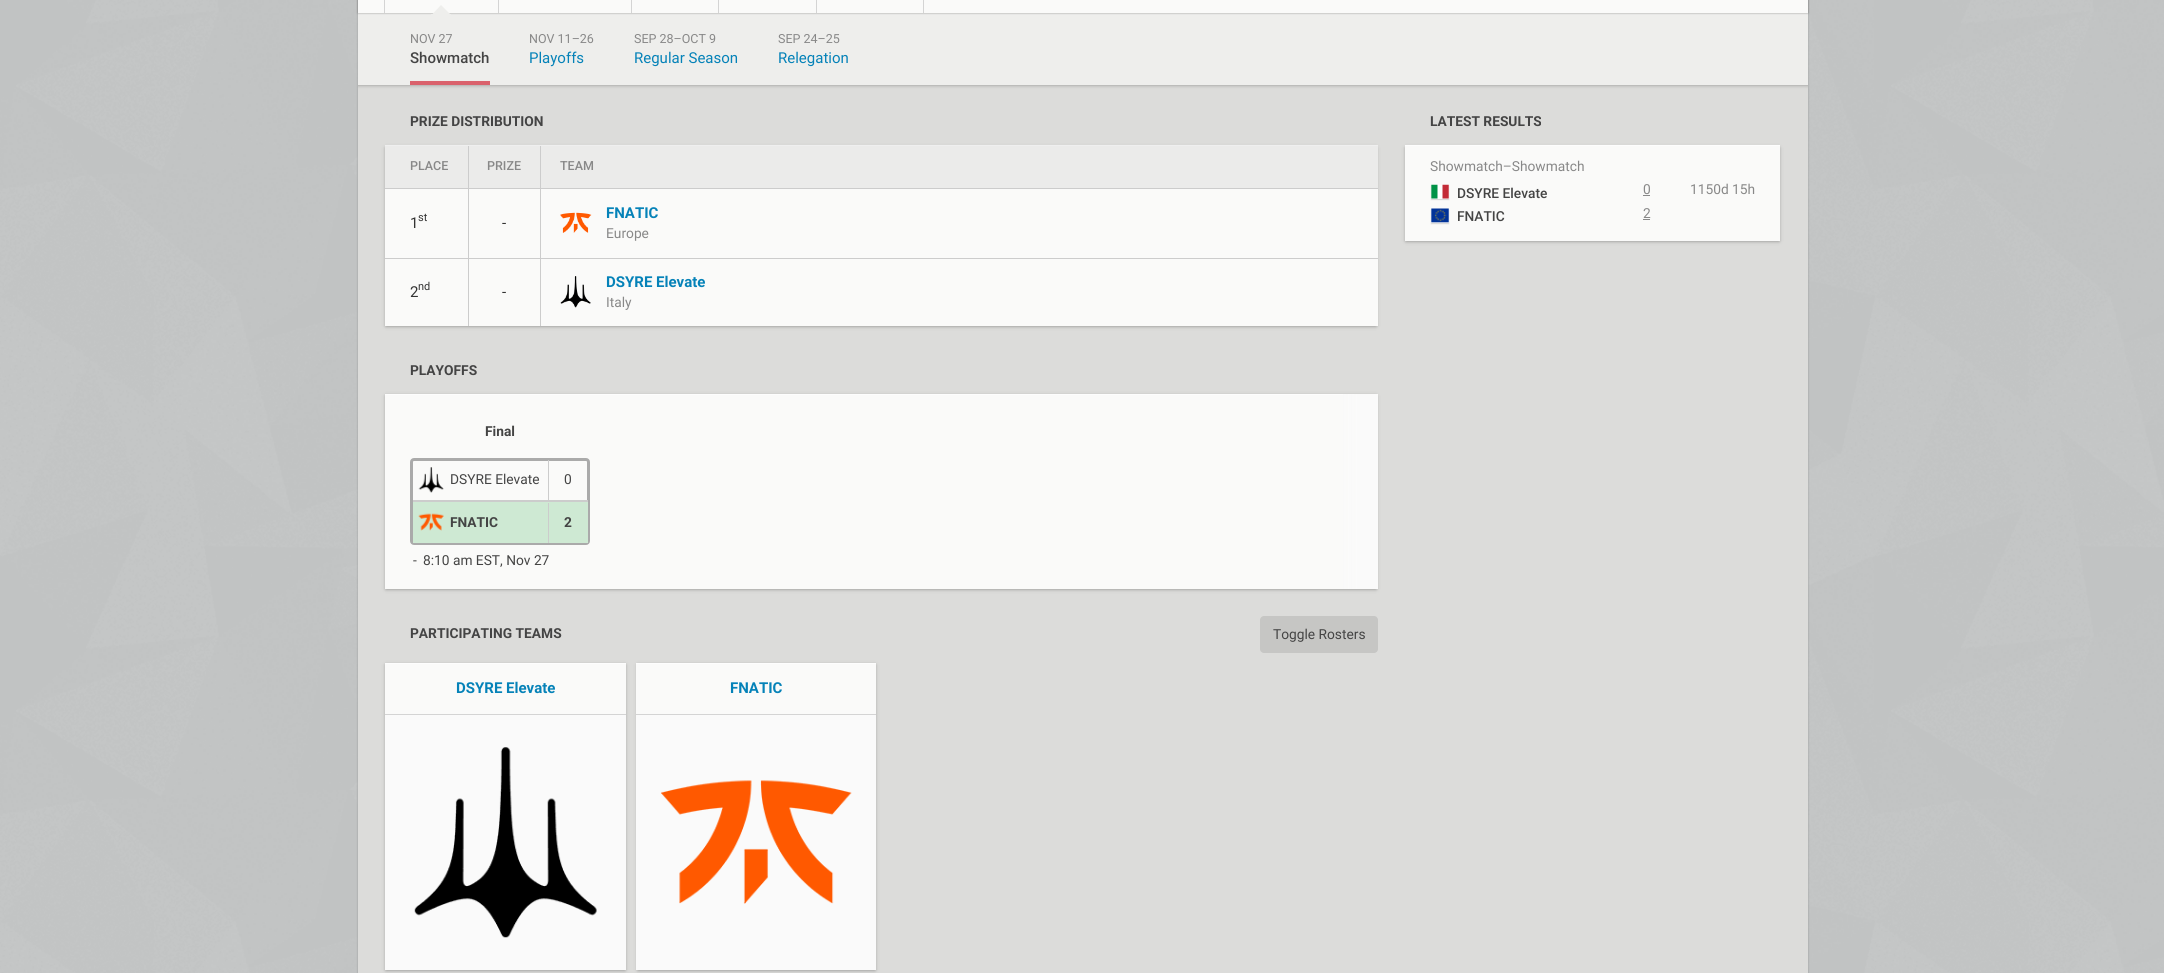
import math
import cairo

surface = cairo.ImageSurface(cairo.FORMAT_RGB24, 2164, 973)
ctx = cairo.Context(surface)
options = cairo.FontOptions()
options.set_hint_metrics(cairo.HINT_METRICS_OFF)
options.set_hint_style(cairo.HINT_STYLE_NONE)
ctx.set_font_options(options)
ctx.set_miter_limit(4)


def set_color(code):
    ctx.set_source_rgb(*(v / 255 for v in bytes.fromhex(code[-6:])))


def draw_text(x, y, s, family, size, color, bold=False, italic=False):
    ctx.select_font_face(family, cairo.FONT_SLANT_ITALIC if italic else cairo.FONT_SLANT_NORMAL, cairo.FONT_WEIGHT_BOLD if bold else cairo.FONT_WEIGHT_NORMAL)
    ctx.set_font_size(size)
    set_color(color)
    ctx.move_to(x, y)
    ctx.show_text(s)


def fill_rect(x, y, w, h, color):
    set_color(color)
    ctx.rectangle(x, y, w, h)
    ctx.fill()


def rounded_rect(x, y, w, h, r):
    ctx.new_sub_path()
    for i, (u, v) in enumerate([(x + w - r, y + h - r), (x + r, y + h - r), (x + r, y + r), (x + w - r, y + r)]):
        ctx.arc(u, v, r, i * math.pi / 2, (i + 1) * math.pi / 2)
    ctx.close_path()


def draw_shadow(x, y, w, h, r, blur, alpha):
    ctx.push_group_with_content(cairo.CONTENT_ALPHA)
    ctx.set_operator(cairo.OPERATOR_SOURCE)
    for i in range(15, -16, -2):
        e = blur * i / 6
        if min(w, h) + 2 * e > 0:
            ctx.set_source_rgba(0, 0, 0, alpha * math.erfc((i - 1) / 8.5) / 2)
            rounded_rect(x - e, y - e, w + 2 * e, h + 2 * e, max(0, min(r + e + blur * .6, min(w, h) / 2 + e)))
            ctx.fill()
    ctx.mask(ctx.pop_group())


def draw_image(path, x, y, w, h):
    ctx.save()
    ctx.set_source_surface(cairo.ImageSurface.create_from_png(path), x, y)
    ctx.rectangle(x, y, w, h)
    ctx.fill()
    ctx.restore()


set_color("#ffffff")
ctx.paint()
draw_image("assets/img1.png", 0, 0, 2164, 973)
set_color("#000000")
draw_shadow(358, -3, 1450, 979, 0, 1, 0.22)
fill_rect(358, 85, 1450, 888, "#dcdcda")
ctx.save()
ctx.rectangle(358, 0, 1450, 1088)
ctx.clip()
set_color("#000000")
draw_shadow(355, 15, 1455, 70, 0, 2, 0.35)
ctx.restore()
fill_rect(358, 13, 1450, 72, "#eeeeec")
set_color("#000000")
draw_shadow(358, -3, 1450, 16, 0, 1, 0.35)
fill_rect(358, 0, 1450, 13, "#fafaf9")
fill_rect(498, 0, 1, 13, "#d4d4d4")
fill_rect(384, 0, 1, 13, "#d4d4d4")
set_color("#eeeeec")
ctx.new_path()
ctx.move_to(441, 5)
ctx.line_to(450, 14)
ctx.line_to(441, 22.5)
ctx.line_to(432.5, 14)
ctx.close_path()
ctx.fill()
fill_rect(431, 14, 20, 1, "#eeeeec")
fill_rect(631, 0, 1, 13, "#d4d4d4")
fill_rect(718, 0, 1, 13, "#d4d4d4")
fill_rect(816, 0, 1, 13, "#d4d4d4")
fill_rect(923, 0, 1, 13, "#d4d4d4")
draw_text(410, 43, "NOV 27", "Roboto", 12.5, "#888888")
draw_text(410, 63, "Showmatch", "Roboto Medium", 15, "#444444")
fill_rect(410, 81, 80, 4, "#da626c")
draw_text(529, 43, "NOV 11–26", "Roboto", 12.5, "#888888")
draw_text(529, 63, "Playoffs", "Roboto", 15, "#0582b8")
draw_text(634, 43, "SEP 28–OCT 9", "Roboto", 12.5, "#888888")
draw_text(634, 63, "Regular Season", "Roboto", 15, "#0582b8")
draw_text(778, 43, "SEP 24–25", "Roboto", 12.5, "#888888")
draw_text(778, 63, "Relegation", "Roboto", 15, "#0582b8")
draw_text(410, 126, "PRIZE DISTRIBUTION", "Roboto", 13.75, "#444444", bold=True)
set_color("#000000")
draw_shadow(386, 148, 990, 178, 0, 2, 0.4)
fill_rect(385, 145, 993, 1, "#efefef")
fill_rect(385, 146, 993, 180, "#cccccc")
fill_rect(385, 146, 83, 42, "#ebebea")
draw_text(410, 170, "PLACE", "Roboto Medium", 12.5, "#888888")
fill_rect(469, 146, 71, 42, "#ebebea")
draw_text(487, 170, "PRIZE", "Roboto Medium", 12.5, "#888888")
fill_rect(541, 146, 837, 42, "#ebebea")
draw_text(560, 170, "TEAM", "Roboto Medium", 12.5, "#888888")
fill_rect(385, 189, 83, 69, "#fafaf9")
draw_text(410, 228, "1", "Roboto", 15, "#333333")
draw_text(418, 221, "st", "Roboto", 11, "#333333")
fill_rect(469, 189, 71, 69, "#fafaf9")
draw_text(502, 228, "-", "Roboto", 15, "#333333")
fill_rect(541, 189, 837, 69, "#fafaf9")
draw_image("assets/img2.png", 560, 212, 32, 21)
draw_text(606, 218, "FNATIC", "Roboto", 15, "#0582b8", bold=True)
draw_text(606, 238, "Europe", "Roboto", 13.75, "#888888")
fill_rect(385, 259, 83, 67, "#fafaf9")
draw_text(410, 297, "2", "Roboto", 15, "#333333")
draw_text(418, 290, "nd", "Roboto", 11, "#333333")
fill_rect(469, 259, 71, 67, "#fafaf9")
draw_text(502, 297, "-", "Roboto", 15, "#333333")
fill_rect(541, 259, 837, 67, "#fafaf9")
draw_image("assets/img3.png", 560, 276, 31, 32)
draw_text(606, 287, "DSYRE Elevate", "Roboto", 15, "#0582b8", bold=True)
draw_text(606, 307, "Italy", "Roboto", 13.75, "#888888")
draw_text(410, 375, "PLAYOFFS", "Roboto", 13.75, "#444444", bold=True)
set_color("#000000")
draw_shadow(386, 396, 990, 193, 0, 2, 0.4)
fill_rect(385, 395, 973, 194, "#fafaf9")
fill_rect(385, 394, 973, 1, "#fdfdfd")
gradient = cairo.LinearGradient(1328, 491, 1378, 491)
gradient.add_color_stop_rgba(0, 0.98, 0.98, 0.98, 0)
gradient.add_color_stop_rgba(0.2, 0.98, 0.98, 0.98, 0.5)
gradient.add_color_stop_rgba(0.6, 0.98, 0.98, 0.98, 1)
ctx.set_source(gradient)
ctx.rectangle(1343, 394, 35, 195)
ctx.fill()
draw_text(485, 436, "Final", "Roboto", 13.75, "#444444", bold=True)
rounded_rect(411.5, 459.5, 177, 84, 2.5)
set_color("#aaaaaa")
ctx.set_line_width(3)
ctx.stroke()
fill_rect(413, 500, 175, 2, "#cccccc")
draw_image("assets/img4.png", 418, 467, 26, 26)
draw_text(450, 484, "DSYRE Elevate", "Roboto", 13.75, "#444444")
fill_rect(548, 460, 1, 40, "#cccccc")
draw_text(564, 484, "0", "Roboto", 13.75, "#444444")
fill_rect(413, 502, 175, 41, "#cee9d3")
draw_image("assets/img5.png", 418, 513, 26, 18)
draw_text(450, 527, "FNATIC", "Roboto", 13.75, "#444444", bold=True)
fill_rect(548, 503, 1, 40, "#cccccc")
draw_text(564, 527, "2", "Roboto", 13.75, "#444444", bold=True)
draw_text(413, 565, "-", "Roboto", 13.75, "#444444")
draw_text(423, 565, "8:10 am EST, Nov 27", "Roboto", 13.75, "#444444")
draw_text(410, 638, "PARTICIPATING TEAMS", "Roboto", 13.75, "#444444", bold=True)
set_color("#c6c6c4")
rounded_rect(1260, 616, 118, 37, 4)
ctx.fill()
draw_text(1273, 639, "Toggle Rosters", "Roboto", 13.75, "#444444")
set_color("#000000")
draw_shadow(386, 665, 239, 305, 0, 2, 0.4)
fill_rect(385, 664, 241, 50, "#fafaf9")
fill_rect(385, 663, 241, 1, "#fdfdfd")
fill_rect(385, 714, 241, 1, "#d4d4d4")
draw_text(456, 693, "DSYRE Elevate", "Roboto", 15, "#0582b8", bold=True)
fill_rect(385, 715, 241, 255, "#fafafa")
draw_image("assets/img6.png", 414, 747, 183, 191)
set_color("#000000")
draw_shadow(638, 665, 237, 305, 0, 2, 0.4)
fill_rect(636, 664, 240, 50, "#fafaf9")
fill_rect(636, 663, 240, 1, "#fdfdfd")
fill_rect(636, 714, 240, 1, "#d4d4d4")
draw_text(730, 693, "FNATIC", "Roboto", 15, "#0582b8", bold=True)
fill_rect(636, 715, 240, 255, "#fafafa")
draw_image("assets/img7.png", 661, 780, 191, 124)
draw_text(1430, 126, "LATEST RESULTS", "Roboto", 13.75, "#444444", bold=True)
set_color("#000000")
draw_shadow(1406, 148, 373, 93, 0, 2, 0.4)
fill_rect(1405, 146, 375, 95, "#fafaf9")
fill_rect(1405, 145, 375, 1, "#fdfdfd")
draw_text(1430, 171, "Showmatch–Showmatch", "Roboto", 13.75, "#888888")
draw_image("assets/img8.png", 1431, 184, 18, 15)
ctx.save()
ctx.rectangle(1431, 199, 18, 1)
ctx.clip()
set_color("#000000")
draw_shadow(1431, 186, 18, 14, 0, 0.5, 0.05)
ctx.restore()
ctx.save()
ctx.set_fill_rule(cairo.FILL_RULE_EVEN_ODD)
ctx.new_path()
ctx.move_to(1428, 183)
ctx.line_to(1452, 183)
ctx.line_to(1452, 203)
ctx.line_to(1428, 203)
ctx.close_path()
ctx.move_to(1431, 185)
ctx.line_to(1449, 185)
ctx.line_to(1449, 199)
ctx.line_to(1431, 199)
ctx.close_path()
ctx.clip()
set_color("#000000")
draw_shadow(1431, 186, 18, 14, 0, 0.5, 0.1)
ctx.restore()
draw_text(1457, 198, "DSYRE Elevate", "Roboto Medium", 13.75, "#444444")
draw_text(1643, 194, "0", "Roboto", 13.75, "#888888")
fill_rect(1643, 195, 7, 1, "#888888")
draw_text(1690, 194, "1150d 15h", "Roboto", 13.75, "#888888")
draw_image("assets/img9.png", 1431, 208, 18, 15)
ctx.save()
ctx.set_fill_rule(cairo.FILL_RULE_EVEN_ODD)
ctx.new_path()
ctx.move_to(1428, 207)
ctx.line_to(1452, 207)
ctx.line_to(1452, 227)
ctx.line_to(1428, 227)
ctx.close_path()
ctx.move_to(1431, 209)
ctx.line_to(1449, 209)
ctx.line_to(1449, 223)
ctx.line_to(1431, 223)
ctx.close_path()
ctx.clip()
set_color("#000000")
draw_shadow(1431, 210, 18, 14, 0, 0.5, 0.05)
draw_shadow(1431, 210, 18, 14, 0, 0.5, 0.1)
ctx.restore()
draw_text(1457, 221, "FNATIC", "Roboto Medium", 13.75, "#444444")
draw_text(1643, 218, "2", "Roboto", 13.75, "#888888")
fill_rect(1643, 219, 7, 1, "#888888")
surface.write_to_png("output.png")
